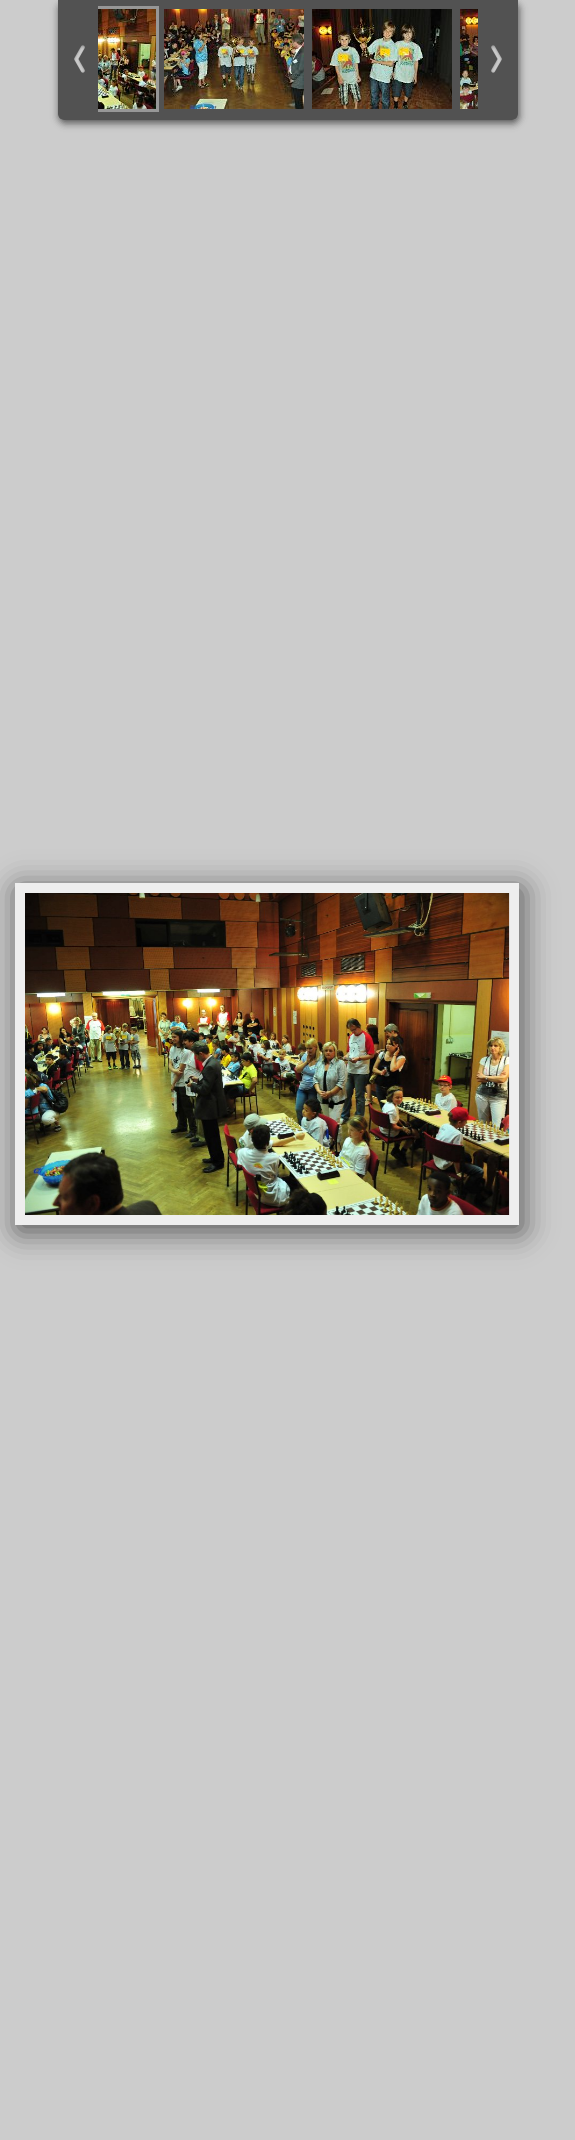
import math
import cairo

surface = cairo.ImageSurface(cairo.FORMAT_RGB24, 575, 2140)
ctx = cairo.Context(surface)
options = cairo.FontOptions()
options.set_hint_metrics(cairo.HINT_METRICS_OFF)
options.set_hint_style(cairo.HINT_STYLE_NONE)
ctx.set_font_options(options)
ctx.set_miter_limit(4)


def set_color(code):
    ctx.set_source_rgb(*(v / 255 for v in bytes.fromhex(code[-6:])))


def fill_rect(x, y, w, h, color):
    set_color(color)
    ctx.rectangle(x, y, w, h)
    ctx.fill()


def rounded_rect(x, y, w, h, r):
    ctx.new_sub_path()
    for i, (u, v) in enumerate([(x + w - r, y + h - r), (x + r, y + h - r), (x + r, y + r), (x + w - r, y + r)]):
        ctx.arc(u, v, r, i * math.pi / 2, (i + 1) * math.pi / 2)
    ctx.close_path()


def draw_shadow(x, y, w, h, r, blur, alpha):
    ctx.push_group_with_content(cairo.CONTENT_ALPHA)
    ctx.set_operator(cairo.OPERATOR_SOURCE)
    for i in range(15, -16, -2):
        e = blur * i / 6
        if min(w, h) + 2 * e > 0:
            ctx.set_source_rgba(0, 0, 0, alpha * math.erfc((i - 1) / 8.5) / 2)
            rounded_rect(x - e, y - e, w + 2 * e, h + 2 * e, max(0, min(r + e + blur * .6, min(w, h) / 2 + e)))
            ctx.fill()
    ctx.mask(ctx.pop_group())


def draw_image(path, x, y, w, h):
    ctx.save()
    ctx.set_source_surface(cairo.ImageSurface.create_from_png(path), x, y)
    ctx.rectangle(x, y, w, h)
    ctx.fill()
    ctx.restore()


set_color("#cccccc")
ctx.paint()
ctx.save()
ctx.set_fill_rule(cairo.FILL_RULE_EVEN_ODD)
ctx.new_path()
ctx.move_to(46, 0)
ctx.line_to(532, 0)
ctx.line_to(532, 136)
ctx.line_to(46, 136)
ctx.close_path()
ctx.move_to(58, 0)
ctx.line_to(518, 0)
ctx.line_to(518, 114)
ctx.curve_to(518, 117.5, 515.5, 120, 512, 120)
ctx.line_to(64, 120)
ctx.curve_to(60.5, 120, 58, 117.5, 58, 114)
ctx.close_path()
ctx.clip()
set_color("#000000")
draw_shadow(59, 3, 460, 120, 6, 4, 0.6)
ctx.restore()
ctx.set_source_rgba(0, 0, 0, 0.6)
ctx.new_path()
ctx.move_to(58, 0)
ctx.line_to(518, 0)
ctx.line_to(518, 114)
ctx.curve_to(518, 117.5, 515.5, 120, 512, 120)
ctx.line_to(64, 120)
ctx.curve_to(60.5, 120, 58, 117.5, 58, 114)
ctx.close_path()
ctx.fill()
draw_image("assets/img1.png", 74, 45, 11, 28)
fill_rect(98, 6, 61, 106, "#979797")
draw_image("assets/img2.png", 98, 9, 58, 100)
draw_image("assets/img3.png", 164, 9, 140, 100)
draw_image("assets/img4.png", 312, 9, 140, 100)
draw_image("assets/img5.png", 460, 9, 18, 100)
draw_image("assets/img6.png", 491, 45, 11, 28)
set_color("#000000")
draw_shadow(18, 889, 504, 342, 0, 16, 0.6)
fill_rect(15, 883, 504, 342, "#eeeeee")
draw_image("assets/img7.png", 25, 893, 485, 322)
surface.write_to_png("output.png")
